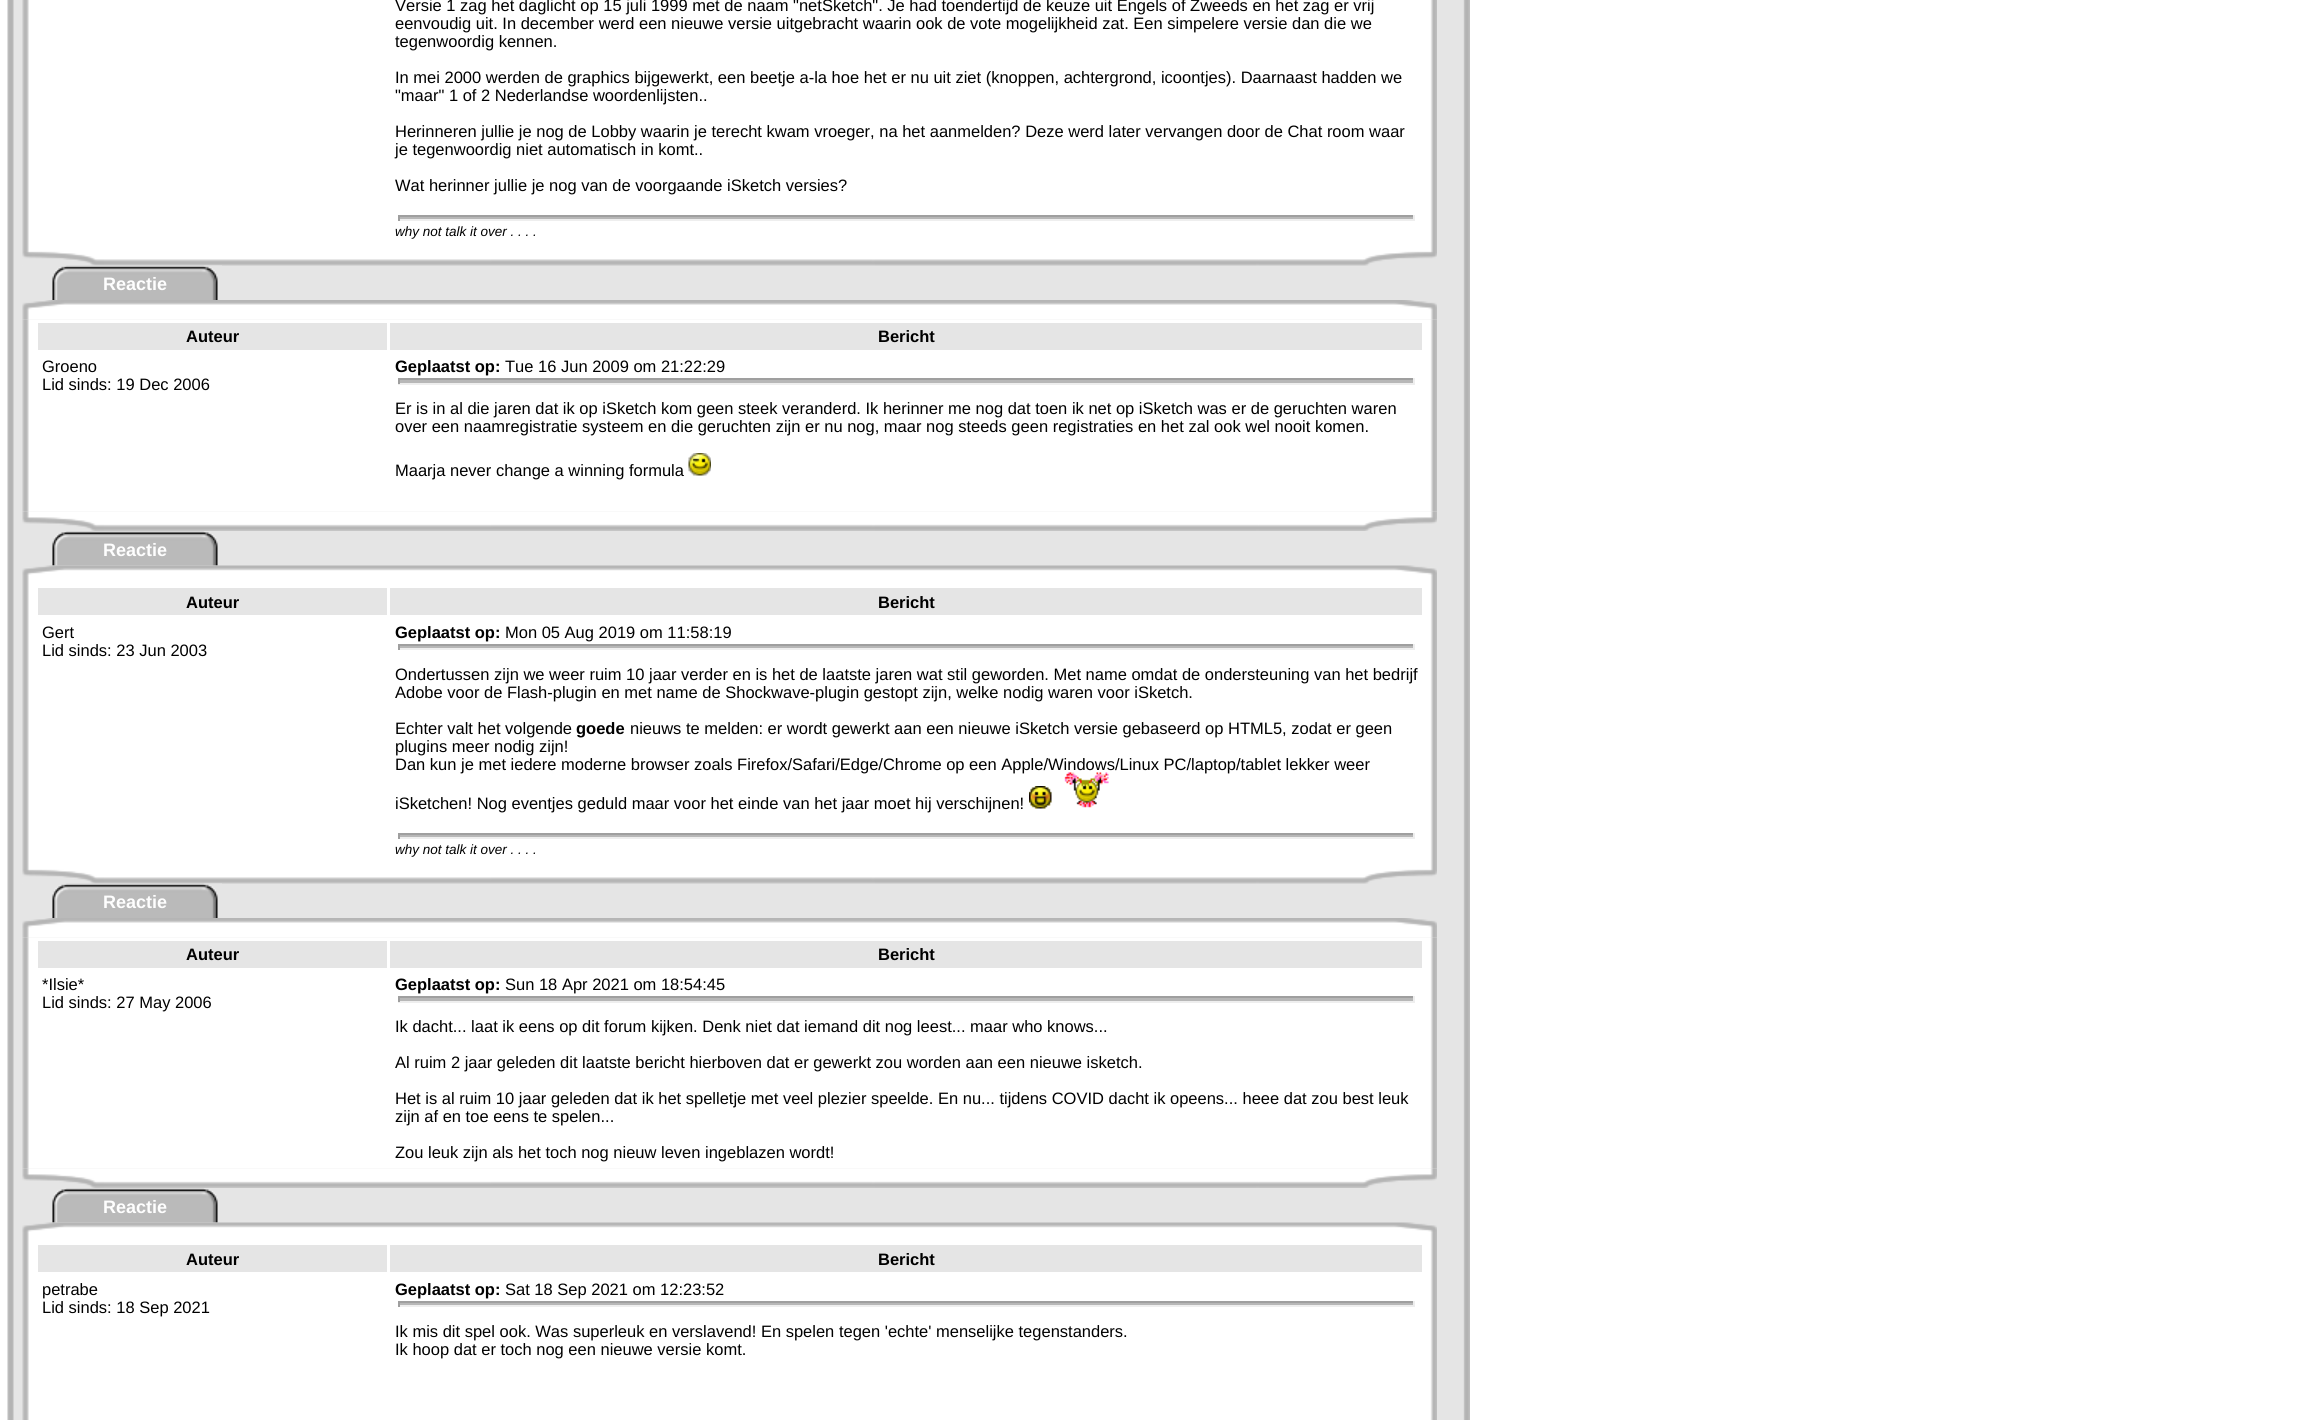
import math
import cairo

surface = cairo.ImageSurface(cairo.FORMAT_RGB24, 2298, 1420)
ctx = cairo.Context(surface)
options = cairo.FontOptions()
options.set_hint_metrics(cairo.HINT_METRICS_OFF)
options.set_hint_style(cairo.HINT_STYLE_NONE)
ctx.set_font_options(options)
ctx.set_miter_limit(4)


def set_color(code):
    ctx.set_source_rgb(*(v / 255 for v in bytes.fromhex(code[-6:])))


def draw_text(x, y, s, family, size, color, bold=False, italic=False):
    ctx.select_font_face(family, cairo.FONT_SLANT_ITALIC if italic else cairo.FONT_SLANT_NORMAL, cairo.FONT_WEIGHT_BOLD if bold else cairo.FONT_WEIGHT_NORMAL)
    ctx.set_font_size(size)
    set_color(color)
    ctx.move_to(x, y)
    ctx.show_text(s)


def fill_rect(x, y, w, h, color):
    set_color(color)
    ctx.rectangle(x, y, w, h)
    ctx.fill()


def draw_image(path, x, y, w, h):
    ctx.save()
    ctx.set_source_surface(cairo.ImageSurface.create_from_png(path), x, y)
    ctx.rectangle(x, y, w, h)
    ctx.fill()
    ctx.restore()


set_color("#ffffff")
ctx.paint()
draw_image("assets/img1.png", 7, 0, 1463, 1420)
draw_image("assets/img2.png", 22, 0, 1415, 246)
draw_text(395, 11, "Versie 1 zag het daglicht op 15 juli 1999 met de naam \"netSketch\". Je had toendertijd de keuze uit Engels of Zweeds en het zag er vrij", "Liberation Sans", 16.5, "#000000")
draw_text(395, 29, "eenvoudig uit. In december werd een nieuwe versie uitgebracht waarin ook de vote mogelijkheid zat. Een simpelere versie dan die we", "Liberation Sans", 16.5, "#000000")
draw_text(395, 47, "tegenwoordig kennen.", "Liberation Sans", 16.5, "#000000")
draw_text(395, 83, "In mei 2000 werden de graphics bijgewerkt, een beetje a-la hoe het er nu uit ziet (knoppen, achtergrond, icoontjes). Daarnaast hadden we", "Liberation Sans", 16.5, "#000000")
draw_text(395, 101, "\"maar\" 1 of 2 Nederlandse woordenlijsten..", "Liberation Sans", 16.5, "#000000")
draw_text(395, 137, "Herinneren jullie je nog de Lobby waarin je terecht kwam vroeger, na het aanmelden? Deze werd later vervangen door de Chat room waar", "Liberation Sans", 16.5, "#000000")
draw_text(395, 155, "je tegenwoordig niet automatisch in komt..", "Liberation Sans", 16.5, "#000000")
draw_text(395, 191, "Wat herinner jullie je nog van de voorgaande iSketch versies?", "Liberation Sans", 16.5, "#000000")
fill_rect(398, 217, 1017, 2, "#b7b7b7")
fill_rect(398, 215, 1017, 2, "#9f9f9f")
fill_rect(1413, 215, 2, 6, "#eeeeee")
fill_rect(398, 219, 1017, 2, "#eeeeee")
fill_rect(398, 215, 2, 6, "#9f9f9f")
draw_text(395, 236, "why not talk it over . . . .", "Liberation Sans", 13.5, "#000000", italic=True)
draw_image("assets/img3.png", 22, 246, 1415, 20)
draw_image("assets/img4.png", 52, 265, 170, 35)
draw_text(103, 290, "Reactie", "Liberation Sans", 18, "#fefefe", bold=True)
draw_image("assets/img5.png", 22, 300, 1415, 20)
draw_image("assets/img6.png", 22, 319, 1415, 193)
fill_rect(38, 323, 349, 27, "#e5e5e5")
draw_text(186, 342, "Auteur", "Liberation Sans", 16.5, "#000000", bold=True)
fill_rect(390, 323, 1032, 27, "#e5e5e5")
draw_text(878, 342, "Bericht", "Liberation Sans", 16.5, "#000000", bold=True)
draw_text(42, 372, "Groeno", "Liberation Sans", 16.5, "#000000")
draw_text(42, 390, "Lid sinds: 19 Dec 2006", "Liberation Sans", 16.5, "#000000")
draw_text(395, 372, "Geplaatst op:", "Liberation Sans", 16.5, "#000000", bold=True)
draw_text(505, 372, "Tue 16 Jun 2009 om 21:22:29", "Liberation Sans", 16.5, "#000000")
fill_rect(398, 380, 1017, 3, "#b7b7b7")
fill_rect(398, 378, 1017, 2, "#9f9f9f")
fill_rect(1413, 378, 2, 6, "#eeeeee")
fill_rect(398, 383, 1017, 2, "#eeeeee")
fill_rect(398, 378, 2, 6, "#9f9f9f")
draw_text(395, 414, "Er is in al die jaren dat ik op iSketch kom geen steek veranderd. Ik herinner me nog dat toen ik net op iSketch was er de geruchten waren", "Liberation Sans", 16.5, "#000000")
draw_text(395, 432, "over een naamregistratie systeem en die geruchten zijn er nu nog, maar nog steeds geen registraties en het zal ook wel nooit komen.", "Liberation Sans", 16.5, "#000000")
draw_text(395, 476, "Maarja never change a winning formula", "Liberation Sans", 16.5, "#000000")
draw_image("assets/img7.png", 688, 453, 23, 23)
draw_image("assets/img8.png", 22, 511, 1415, 20)
draw_image("assets/img9.png", 52, 531, 166, 35)
draw_text(103, 556, "Reactie", "Liberation Sans", 18, "#fefefe", bold=True)
draw_image("assets/img10.png", 22, 565, 1415, 20)
draw_image("assets/img11.png", 22, 585, 1415, 279)
fill_rect(38, 588, 349, 27, "#e5e5e5")
draw_text(186, 608, "Auteur", "Liberation Sans", 16.5, "#000000", bold=True)
fill_rect(390, 588, 1032, 27, "#e5e5e5")
draw_text(878, 608, "Bericht", "Liberation Sans", 16.5, "#000000", bold=True)
draw_text(42, 638, "Gert", "Liberation Sans", 16.5, "#000000")
draw_text(42, 656, "Lid sinds: 23 Jun 2003", "Liberation Sans", 16.5, "#000000")
draw_text(395, 638, "Geplaatst op:", "Liberation Sans", 16.5, "#000000", bold=True)
draw_text(505, 638, "Mon 05 Aug 2019 om 11:58:19", "Liberation Sans", 16.5, "#000000")
fill_rect(398, 646, 1017, 2, "#b7b7b7")
fill_rect(398, 644, 1017, 2, "#9f9f9f")
fill_rect(1413, 644, 2, 6, "#eeeeee")
fill_rect(398, 648, 1017, 2, "#eeeeee")
fill_rect(398, 644, 2, 6, "#9f9f9f")
draw_text(395, 680, "Ondertussen zijn we weer ruim 10 jaar verder en is het de laatste jaren wat stil geworden. Met name omdat de ondersteuning van het bedrijf", "Liberation Sans", 16.5, "#000000")
draw_text(395, 698, "Adobe voor de Flash-plugin en met name de Shockwave-plugin gestopt zijn, welke nodig waren voor iSketch.", "Liberation Sans", 16.5, "#000000")
draw_text(395, 734, "Echter valt het volgende", "Liberation Sans", 16.5, "#000000")
draw_text(576, 734, "goede", "Liberation Sans", 16.5, "#000000", bold=True)
draw_text(630, 734, "nieuws te melden: er wordt gewerkt aan een nieuwe iSketch versie gebaseerd op HTML5, zodat er geen", "Liberation Sans", 16.5, "#000000")
draw_text(395, 752, "plugins meer nodig zijn!", "Liberation Sans", 16.5, "#000000")
draw_text(395, 770, "Dan kun je met iedere moderne browser zoals Firefox/Safari/Edge/Chrome op een Apple/Windows/Linux PC/laptop/tablet lekker weer", "Liberation Sans", 16.5, "#000000")
draw_text(395, 809, "iSketchen! Nog eventjes geduld maar voor het einde van het jaar moet hij verschijnen!", "Liberation Sans", 16.5, "#000000")
draw_image("assets/img12.png", 1029, 786, 23, 23)
draw_image("assets/img13.png", 1064, 772, 45, 36)
fill_rect(398, 835, 1017, 2, "#b7b7b7")
fill_rect(398, 833, 1017, 2, "#9f9f9f")
fill_rect(1413, 833, 2, 6, "#eeeeee")
fill_rect(398, 837, 1017, 2, "#eeeeee")
fill_rect(398, 833, 2, 6, "#9f9f9f")
draw_text(395, 854, "why not talk it over . . . .", "Liberation Sans", 13.5, "#000000", italic=True)
draw_image("assets/img3.png", 22, 864, 1415, 20)
draw_image("assets/img4.png", 52, 883, 170, 35)
draw_text(103, 908, "Reactie", "Liberation Sans", 18, "#fefefe", bold=True)
draw_image("assets/img5.png", 22, 918, 1415, 20)
draw_image("assets/img14.png", 22, 937, 1415, 232)
fill_rect(38, 941, 349, 27, "#e5e5e5")
draw_text(186, 960, "Auteur", "Liberation Sans", 16.5, "#000000", bold=True)
fill_rect(390, 941, 1032, 27, "#e5e5e5")
draw_text(878, 960, "Bericht", "Liberation Sans", 16.5, "#000000", bold=True)
draw_text(42, 990, "*Ilsie*", "Liberation Sans", 16.5, "#000000")
draw_text(42, 1008, "Lid sinds: 27 May 2006", "Liberation Sans", 16.5, "#000000")
draw_text(395, 990, "Geplaatst op:", "Liberation Sans", 16.5, "#000000", bold=True)
draw_text(505, 990, "Sun 18 Apr 2021 om 18:54:45", "Liberation Sans", 16.5, "#000000")
fill_rect(398, 998, 1017, 3, "#b7b7b7")
fill_rect(398, 996, 1017, 2, "#9f9f9f")
fill_rect(1413, 996, 2, 6, "#eeeeee")
fill_rect(398, 1001, 1017, 2, "#eeeeee")
fill_rect(398, 996, 2, 6, "#9f9f9f")
draw_text(395, 1032, "Ik dacht... laat ik eens op dit forum kijken. Denk niet dat iemand dit nog leest... maar who knows...", "Liberation Sans", 16.5, "#000000")
draw_text(395, 1068, "Al ruim 2 jaar geleden dit laatste bericht hierboven dat er gewerkt zou worden aan een nieuwe isketch.", "Liberation Sans", 16.5, "#000000")
draw_text(395, 1104, "Het is al ruim 10 jaar geleden dat ik het spelletje met veel plezier speelde. En nu... tijdens COVID dacht ik opeens... heee dat zou best leuk", "Liberation Sans", 16.5, "#000000")
draw_text(395, 1122, "zijn af en toe eens te spelen...", "Liberation Sans", 16.5, "#000000")
draw_text(395, 1158, "Zou leuk zijn als het toch nog nieuw leven ingeblazen wordt!", "Liberation Sans", 16.5, "#000000")
draw_image("assets/img8.png", 22, 1168, 1415, 20)
draw_image("assets/img9.png", 52, 1188, 166, 35)
draw_text(103, 1213, "Reactie", "Liberation Sans", 18, "#fefefe", bold=True)
draw_image("assets/img10.png", 22, 1222, 1415, 20)
draw_image("assets/img15.png", 22, 1242, 1415, 178)
fill_rect(38, 1245, 349, 27, "#e5e5e5")
draw_text(186, 1265, "Auteur", "Liberation Sans", 16.5, "#000000", bold=True)
fill_rect(390, 1245, 1032, 27, "#e5e5e5")
draw_text(878, 1265, "Bericht", "Liberation Sans", 16.5, "#000000", bold=True)
draw_text(42, 1295, "petrabe", "Liberation Sans", 16.5, "#000000")
draw_text(42, 1313, "Lid sinds: 18 Sep 2021", "Liberation Sans", 16.5, "#000000")
draw_text(395, 1295, "Geplaatst op:", "Liberation Sans", 16.5, "#000000", bold=True)
draw_text(505, 1295, "Sat 18 Sep 2021 om 12:23:52", "Liberation Sans", 16.5, "#000000")
fill_rect(398, 1303, 1017, 2, "#b7b7b7")
fill_rect(398, 1301, 1017, 2, "#9f9f9f")
fill_rect(1413, 1301, 2, 6, "#eeeeee")
fill_rect(398, 1305, 1017, 2, "#eeeeee")
fill_rect(398, 1301, 2, 6, "#9f9f9f")
draw_text(395, 1337, "Ik mis dit spel ook. Was superleuk en verslavend! En spelen tegen 'echte' menselijke tegenstanders.", "Liberation Sans", 16.5, "#000000")
draw_text(395, 1355, "Ik hoop dat er toch nog een nieuwe versie komt.", "Liberation Sans", 16.5, "#000000")
surface.write_to_png("output.png")
